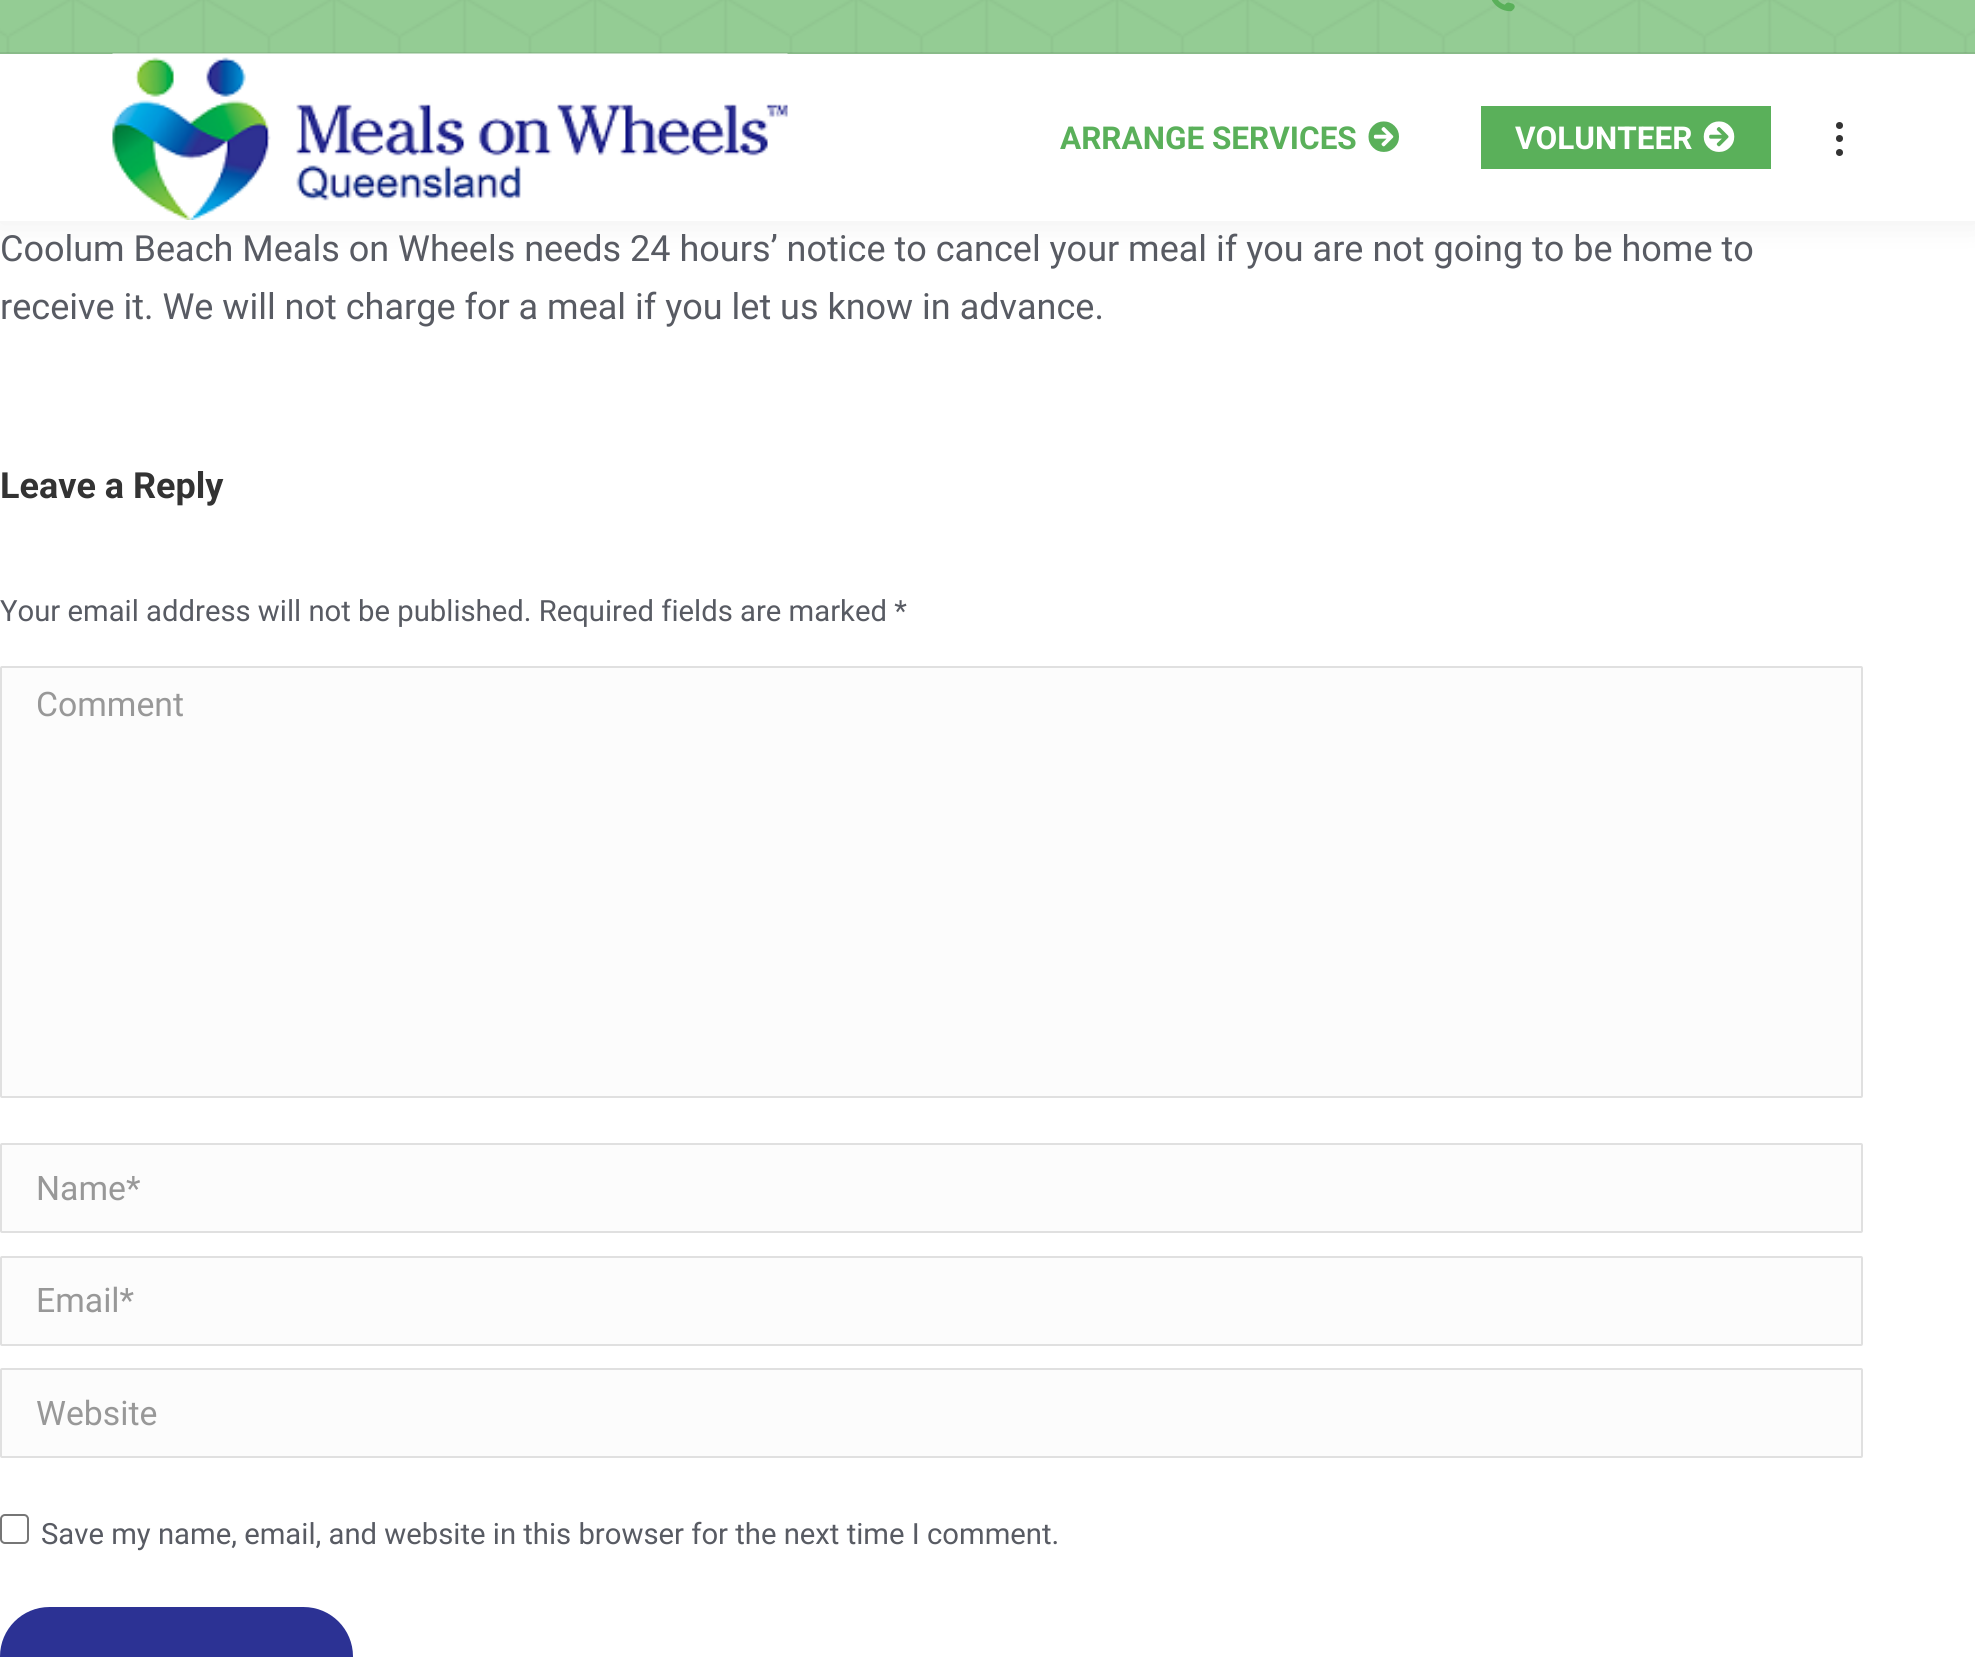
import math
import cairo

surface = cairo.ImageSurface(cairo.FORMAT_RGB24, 1975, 1657)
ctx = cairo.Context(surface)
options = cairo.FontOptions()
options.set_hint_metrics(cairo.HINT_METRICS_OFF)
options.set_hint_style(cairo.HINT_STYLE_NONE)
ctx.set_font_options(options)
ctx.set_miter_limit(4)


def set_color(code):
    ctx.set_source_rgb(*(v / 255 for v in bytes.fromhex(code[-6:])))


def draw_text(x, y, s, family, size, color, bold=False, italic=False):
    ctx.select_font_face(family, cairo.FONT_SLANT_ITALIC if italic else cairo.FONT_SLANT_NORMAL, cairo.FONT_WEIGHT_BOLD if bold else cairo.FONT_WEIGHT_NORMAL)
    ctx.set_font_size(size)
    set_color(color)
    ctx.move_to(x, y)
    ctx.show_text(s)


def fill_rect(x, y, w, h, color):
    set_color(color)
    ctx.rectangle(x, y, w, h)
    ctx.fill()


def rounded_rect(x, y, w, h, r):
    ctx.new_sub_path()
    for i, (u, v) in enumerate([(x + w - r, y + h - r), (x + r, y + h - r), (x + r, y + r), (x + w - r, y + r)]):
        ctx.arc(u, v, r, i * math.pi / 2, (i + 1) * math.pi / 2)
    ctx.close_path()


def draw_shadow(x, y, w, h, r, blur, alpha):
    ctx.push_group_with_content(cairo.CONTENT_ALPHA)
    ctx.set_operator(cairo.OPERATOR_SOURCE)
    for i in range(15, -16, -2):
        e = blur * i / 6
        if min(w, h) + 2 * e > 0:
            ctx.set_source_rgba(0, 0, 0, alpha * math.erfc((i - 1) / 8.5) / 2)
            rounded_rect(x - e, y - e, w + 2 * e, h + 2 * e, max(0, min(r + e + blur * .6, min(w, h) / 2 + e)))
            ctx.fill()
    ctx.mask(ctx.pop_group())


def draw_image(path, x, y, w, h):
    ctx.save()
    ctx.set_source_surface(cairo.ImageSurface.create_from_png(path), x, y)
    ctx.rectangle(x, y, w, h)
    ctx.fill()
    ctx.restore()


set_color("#ffffff")
ctx.paint()
set_color("#000000")
draw_shadow(-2, -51, 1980, 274, 0, 17, 0.07)
fill_rect(0, 54, 1975, 167, "#ffffff")
fill_rect(0, 0, 1975, 54, "#94cc94")
draw_image("assets/img1.png", 0, 0, 1975, 53)
draw_image("assets/img2.png", 1492, 0, 23, 12)
ctx.set_source_rgba(0.2, 0.2, 0.2, 0.11)
ctx.rectangle(0, 52, 1975, 2)
ctx.fill()
draw_image("assets/img3.png", 112, 53, 676, 167)
draw_text(1060, 149, "ARRANGE SERVICES", "Roboto", 31.5, "#5ab05a", bold=True)
draw_image("assets/img4.png", 1368, 121, 31, 31)
fill_rect(1481, 106, 290, 63, "#5ab05a")
draw_text(1515, 149, "VOLUNTEER", "Roboto", 31.5, "#ffffff", bold=True)
draw_image("assets/img5.png", 1703, 121, 32, 31)
set_color("#333333")
ctx.arc(1839.5, 125.5, 3.5, 0, 2 * math.pi)
ctx.fill()
ctx.arc(1839.5, 138.5, 3.5, 0, 2 * math.pi)
ctx.fill()
ctx.arc(1839.5, 152.5, 3.5, 0, 2 * math.pi)
ctx.fill()
draw_text(0, 261, "Coolum Beach Meals on Wheels needs 24 hours’ notice to cancel your meal if you are not going to be home to", "Roboto", 36, "#585b63")
draw_text(0, 319, "receive it. We will not charge for a meal if you let us know in advance.", "Roboto", 36, "#585b63")
draw_text(0, 498, "Leave a Reply", "Roboto", 36, "#333333", bold=True)
draw_text(0, 621, "Your email address will not be published. Required fields are marked *", "Roboto", 29.25, "#585b63")
set_color("#fcfcfc")
rounded_rect(1, 667, 1861, 430, 1)
ctx.fill_preserve()
set_color("#e0e0e0")
ctx.stroke()
draw_text(36, 716, "Comment", "Roboto", 33.75, "#989898")
set_color("#fcfcfc")
rounded_rect(1, 1144, 1861, 88, 1)
ctx.fill_preserve()
set_color("#e0e0e0")
ctx.stroke()
draw_text(36, 1200, "Name*", "Roboto", 33.75, "#989898")
set_color("#fcfcfc")
rounded_rect(1, 1257, 1861, 88, 1)
ctx.fill_preserve()
set_color("#e0e0e0")
ctx.stroke()
draw_text(36, 1312, "Email*", "Roboto", 33.75, "#989898")
set_color("#fcfcfc")
rounded_rect(1, 1369, 1861, 88, 1)
ctx.fill_preserve()
set_color("#e0e0e0")
ctx.stroke()
draw_text(36, 1425, "Website", "Roboto", 33.75, "#989898")
rounded_rect(1, 1515, 27, 28, 4)
set_color("#767676")
ctx.stroke()
draw_text(41, 1544, "Save my name, email, and website in this browser for the next time I comment.", "Roboto", 29.25, "#585b63")
set_color("#2c3294")
rounded_rect(0, 1607, 353, 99, 49.5)
ctx.fill()
surface.write_to_png("output.png")
